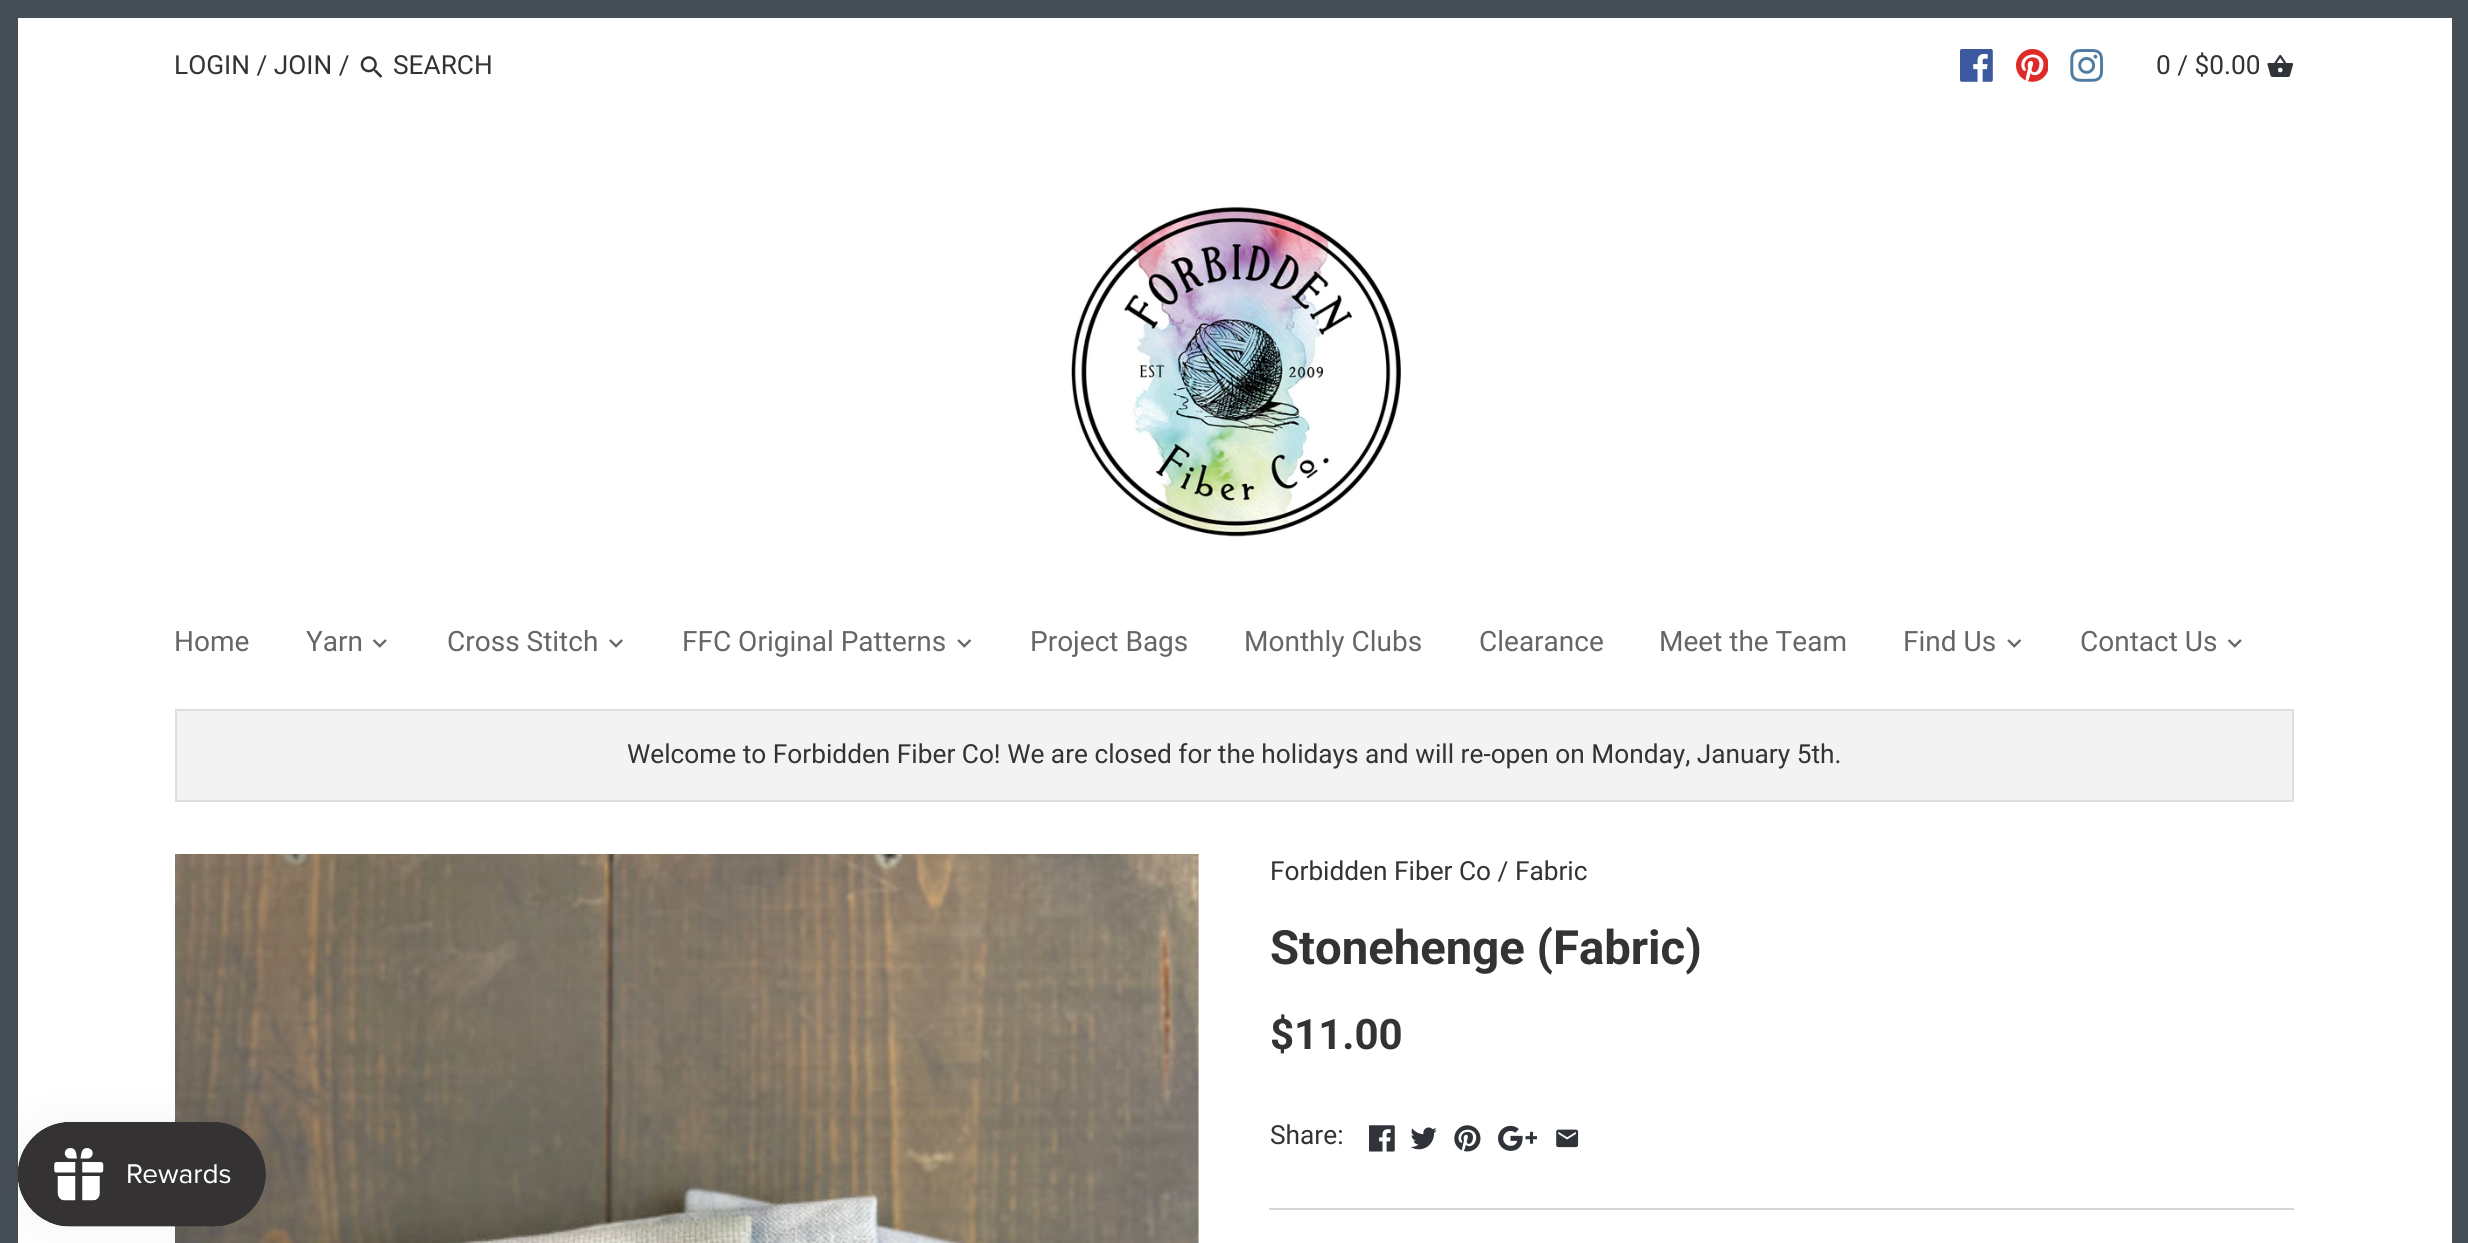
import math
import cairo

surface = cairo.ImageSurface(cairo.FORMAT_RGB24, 2468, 1243)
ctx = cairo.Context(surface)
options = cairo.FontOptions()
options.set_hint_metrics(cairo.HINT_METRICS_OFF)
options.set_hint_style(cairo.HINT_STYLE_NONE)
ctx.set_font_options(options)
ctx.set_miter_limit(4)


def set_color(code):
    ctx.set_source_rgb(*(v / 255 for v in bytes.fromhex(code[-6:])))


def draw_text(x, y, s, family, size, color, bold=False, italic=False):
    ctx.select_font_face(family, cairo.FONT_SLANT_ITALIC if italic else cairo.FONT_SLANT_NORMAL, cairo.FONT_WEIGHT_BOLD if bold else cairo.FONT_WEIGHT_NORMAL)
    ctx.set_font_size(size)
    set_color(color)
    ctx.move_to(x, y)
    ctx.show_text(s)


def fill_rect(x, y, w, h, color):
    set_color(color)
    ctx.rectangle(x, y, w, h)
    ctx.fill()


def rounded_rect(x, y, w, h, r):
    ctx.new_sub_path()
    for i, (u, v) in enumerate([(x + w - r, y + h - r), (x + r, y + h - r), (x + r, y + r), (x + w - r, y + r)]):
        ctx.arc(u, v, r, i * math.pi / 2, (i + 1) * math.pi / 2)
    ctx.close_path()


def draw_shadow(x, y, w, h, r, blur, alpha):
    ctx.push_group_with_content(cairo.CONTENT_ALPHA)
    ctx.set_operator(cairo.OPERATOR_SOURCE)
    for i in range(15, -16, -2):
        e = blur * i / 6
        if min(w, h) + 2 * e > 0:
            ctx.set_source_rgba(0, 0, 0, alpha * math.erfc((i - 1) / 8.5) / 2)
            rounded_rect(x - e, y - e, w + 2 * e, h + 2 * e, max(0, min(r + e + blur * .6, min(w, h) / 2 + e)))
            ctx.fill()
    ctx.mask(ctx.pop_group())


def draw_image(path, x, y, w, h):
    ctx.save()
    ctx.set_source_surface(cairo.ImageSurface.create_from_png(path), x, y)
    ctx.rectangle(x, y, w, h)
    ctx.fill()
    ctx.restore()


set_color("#ffffff")
ctx.paint()
ctx.rectangle(9, 9, 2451, 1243)
set_color("#454e54")
ctx.set_line_width(18)
ctx.stroke()
draw_image("assets/img11.png", 175, 854, 1024, 389)
set_color("#000000")
draw_shadow(18, 1122, 248, 105, 52.5, 22, 0.05)
draw_image("assets/img1.png", 18, 1122, 248, 105)
fill_rect(2451, 18, 1, 1225, "#ffffff")
draw_text(174, 74, "LOGIN / JOIN /", "Roboto", 26.25, "#333333")
draw_image("assets/img2.png", 360, 56, 23, 22)
draw_text(393, 74, "SEARCH", "Roboto", 26.25, "#333333")
draw_image("assets/img3.png", 1960, 49, 33, 33)
draw_image("assets/img4.png", 2016, 49, 32, 33)
draw_image("assets/img5.png", 2070, 49, 34, 33)
draw_text(2156, 74, "0 / $0.00", "Roboto", 26.25, "#333333")
draw_image("assets/img6.png", 2267, 54, 27, 23)
draw_image("assets/img7.png", 1070, 205, 331, 332)
draw_text(174, 651, "Home", "Roboto", 28, "#666666")
draw_text(306, 651, "Yarn", "Roboto", 28, "#666666")
draw_image("assets/img8.png", 372, 639, 15, 9)
draw_text(447, 651, "Cross Stitch", "Roboto", 28, "#666666")
draw_image("assets/img9.png", 609, 639, 14, 9)
draw_text(682, 651, "FFC Original Patterns", "Roboto", 28, "#666666")
draw_image("assets/img10.png", 957, 639, 15, 9)
draw_text(1030, 651, "Project Bags", "Roboto", 28, "#666666")
draw_text(1244, 651, "Monthly Clubs", "Roboto", 28, "#666666")
draw_text(1479, 651, "Clearance", "Roboto", 28, "#666666")
draw_text(1659, 651, "Meet the Team", "Roboto", 28, "#666666")
draw_text(1903, 651, "Find Us", "Roboto", 28, "#666666")
draw_image("assets/img10.png", 2007, 639, 15, 9)
draw_text(2080, 651, "Contact Us", "Roboto", 28, "#666666")
draw_image("assets/img8.png", 2227, 639, 15, 9)
set_color("#f3f3f3")
ctx.rectangle(176, 710, 2117, 91)
ctx.fill_preserve()
set_color("#dfdfdf")
ctx.set_line_width(2)
ctx.stroke()
draw_text(627, 763, "Welcome to Forbidden Fiber Co! We are closed for the holidays and will re-open on Monday, January 5th.", "Roboto", 26.25, "#333333")
fill_rect(1269, 1208, 1025, 2, "#d5d6d0")
draw_text(1270, 880, "Forbidden Fiber Co / Fabric", "Roboto", 26.25, "#333333")
draw_text(1270, 964, "Stonehenge (Fabric)", "Roboto", 47.25, "#333333", bold=True)
draw_text(1270, 1049, "$11.00", "Roboto", 42, "#333333", bold=True)
draw_text(1270, 1144, "Share:", "Roboto", 26.25, "#333333")
draw_image("assets/img12.png", 1369, 1125, 26, 27)
draw_image("assets/img13.png", 1411, 1127, 26, 23)
draw_image("assets/img14.png", 1454, 1125, 27, 27)
draw_image("assets/img15.png", 1498, 1125, 39, 26)
draw_image("assets/img16.png", 1556, 1129, 23, 19)
surface.write_to_png("output.png")
